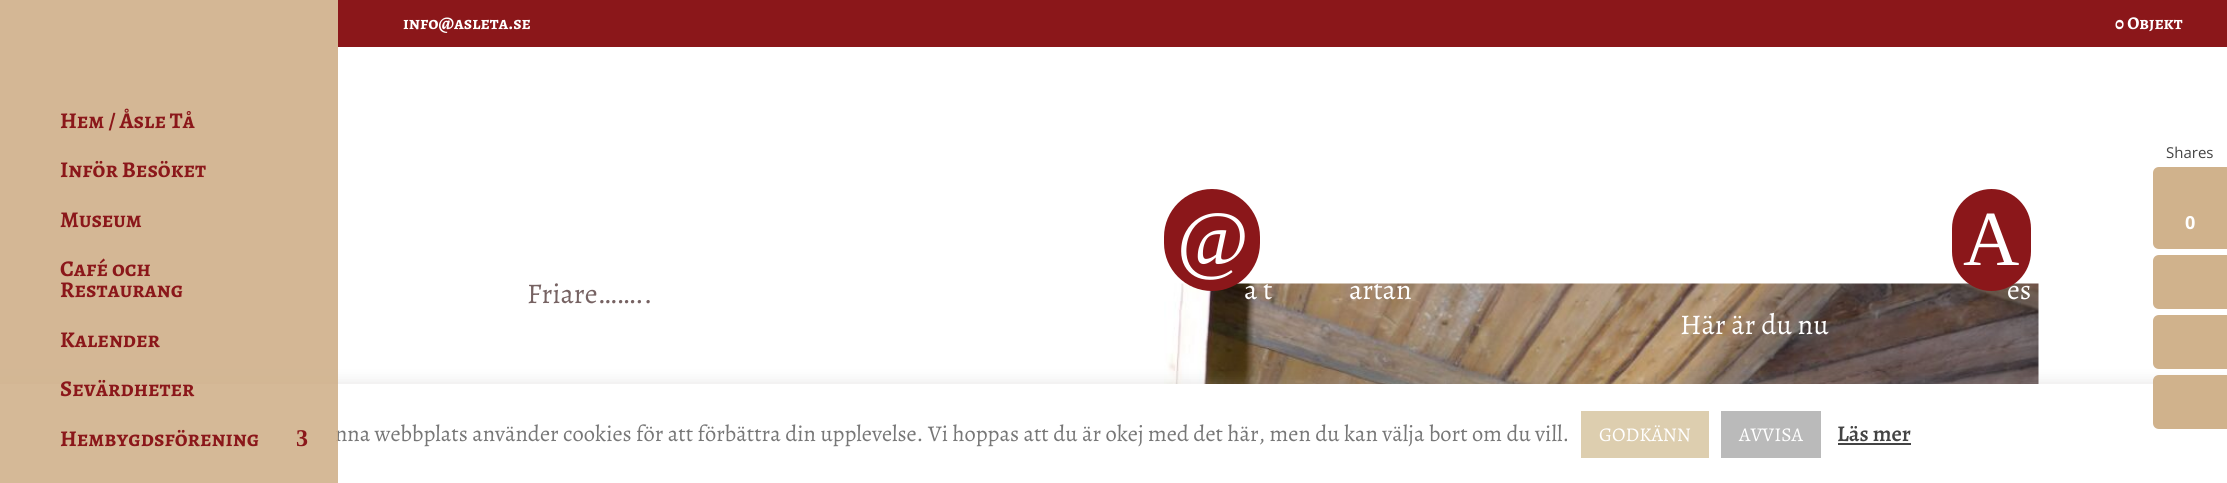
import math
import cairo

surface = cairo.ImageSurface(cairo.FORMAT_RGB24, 2227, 483)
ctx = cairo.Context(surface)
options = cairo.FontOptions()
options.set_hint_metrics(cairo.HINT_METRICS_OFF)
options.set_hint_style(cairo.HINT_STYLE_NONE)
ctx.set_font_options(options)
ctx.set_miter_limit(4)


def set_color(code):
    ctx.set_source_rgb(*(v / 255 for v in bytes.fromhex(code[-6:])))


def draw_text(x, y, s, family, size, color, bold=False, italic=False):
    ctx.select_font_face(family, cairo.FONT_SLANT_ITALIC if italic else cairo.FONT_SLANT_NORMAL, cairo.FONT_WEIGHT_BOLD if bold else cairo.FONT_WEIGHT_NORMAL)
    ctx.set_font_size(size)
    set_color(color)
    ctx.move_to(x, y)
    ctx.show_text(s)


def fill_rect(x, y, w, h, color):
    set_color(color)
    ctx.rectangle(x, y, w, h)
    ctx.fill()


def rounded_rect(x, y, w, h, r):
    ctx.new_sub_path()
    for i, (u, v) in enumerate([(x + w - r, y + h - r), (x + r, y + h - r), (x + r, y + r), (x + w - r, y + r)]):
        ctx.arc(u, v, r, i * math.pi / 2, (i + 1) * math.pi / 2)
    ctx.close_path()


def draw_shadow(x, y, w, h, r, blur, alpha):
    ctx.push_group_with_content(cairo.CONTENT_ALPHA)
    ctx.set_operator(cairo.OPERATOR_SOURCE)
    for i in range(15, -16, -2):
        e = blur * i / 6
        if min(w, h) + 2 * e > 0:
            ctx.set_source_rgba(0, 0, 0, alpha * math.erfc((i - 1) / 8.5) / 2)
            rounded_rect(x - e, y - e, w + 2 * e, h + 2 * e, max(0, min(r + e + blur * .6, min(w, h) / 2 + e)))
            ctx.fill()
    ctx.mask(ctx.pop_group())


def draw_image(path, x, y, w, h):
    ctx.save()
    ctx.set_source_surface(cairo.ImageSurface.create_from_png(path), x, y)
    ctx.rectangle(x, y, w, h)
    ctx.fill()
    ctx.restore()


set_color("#f0eee9")
ctx.paint()
fill_rect(338, 0, 1889, 47, "#8b171a")
draw_text(403, 29, "info@asleta.se", "Alegreya SC", 18, "#ffffff", bold=True)
draw_text(2115, 29, "0 Objekt", "Alegreya SC", 18, "#ffffff", bold=True)
fill_rect(338, 47, 1889, 337, "#ffffff")
draw_image("assets/img1.png", 1164, 283, 875, 101)
set_color("#acabab")
draw_shadow(0, 383, 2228, 99, 0, 7.5, 0.3)
fill_rect(0, 384, 2227, 99, "#ffffff")
draw_text(335, 441, "nna webbplats använder cookies för att förbättra din upplevelse. Vi hoppas att du är okej med det här, men du kan välja bort om du vill.", "Alegreya", 22.5, "#777777")
ctx.set_source_rgba(0.816, 0.698, 0.549, 0.9)
ctx.rectangle(0, 0, 338, 483)
ctx.fill()
draw_text(60, 128, "Hem / Åsle Tå", "Alegreya SC", 22.5, "#8b171a", bold=True)
draw_text(60, 177, "Inför Besöket", "Alegreya SC", 22.5, "#8b171a", bold=True)
draw_text(60, 227, "Museum", "Alegreya SC", 22.5, "#8b171a", bold=True)
draw_text(60, 276, "Café och", "Alegreya SC", 22.5, "#8b171a", bold=True)
draw_text(60, 297, "Restaurang", "Alegreya SC", 22.5, "#8b171a", bold=True)
draw_text(60, 347, "Kalender", "Alegreya SC", 22.5, "#8b171a", bold=True)
draw_text(60, 396, "Sevärdheter", "Alegreya SC", 22.5, "#8b171a", bold=True)
draw_text(60, 446, "Hembygdsförening", "Alegreya SC", 22.5, "#8b171a", bold=True)
draw_text(296, 446, "3", "Liberation Serif", 24, "#8b171a", bold=True)
draw_text(527, 303, "Friare……..", "Alegreya", 28.5, "#766262")
draw_text(1244, 299, "a t", "Alegreya", 28.5, "#ffffff")
set_color("#8b171a")
rounded_rect(1164, 189, 96, 102, 48)
ctx.fill()
draw_text(1177, 265, "@", "Liberation Serif", 78, "#ffffff")
draw_text(1349, 299, "artan", "Alegreya", 28.5, "#ffffff")
draw_text(2007, 299, "es", "Alegreya", 28.5, "#ffffff")
set_color("#8b171a")
rounded_rect(1952, 189, 79, 102, 39.5)
ctx.fill()
draw_text(1963, 265, "A", "Liberation Serif", 78, "#ffffff")
draw_text(1680, 334, "Här är du nu", "Alegreya", 28.5, "#ffffff")
draw_text(2166, 158, "Shares", "Open Sans", 15, "#444444")
set_color("#d0b28c")
ctx.new_path()
ctx.move_to(2159, 167)
ctx.line_to(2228, 167)
ctx.line_to(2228, 249)
ctx.line_to(2159, 249)
ctx.curve_to(2155.5, 249, 2153, 246.5, 2153, 243)
ctx.line_to(2153, 173)
ctx.curve_to(2153, 169.5, 2155.5, 167, 2159, 167)
ctx.close_path()
ctx.fill()
draw_text(2185, 229, "0", "Open Sans", 18, "#ffffff", bold=True)
set_color("#d0b28c")
ctx.new_path()
ctx.move_to(2159, 255)
ctx.line_to(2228, 255)
ctx.line_to(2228, 309)
ctx.line_to(2159, 309)
ctx.curve_to(2155.5, 309, 2153, 306.5, 2153, 303)
ctx.line_to(2153, 261)
ctx.curve_to(2153, 257.5, 2155.5, 255, 2159, 255)
ctx.close_path()
ctx.fill()
ctx.new_path()
ctx.move_to(2159, 315)
ctx.line_to(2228, 315)
ctx.line_to(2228, 369)
ctx.line_to(2159, 369)
ctx.curve_to(2155.5, 369, 2153, 366.5, 2153, 363)
ctx.line_to(2153, 321)
ctx.curve_to(2153, 317.5, 2155.5, 315, 2159, 315)
ctx.close_path()
ctx.fill()
ctx.new_path()
ctx.move_to(2159, 375)
ctx.line_to(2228, 375)
ctx.line_to(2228, 429)
ctx.line_to(2159, 429)
ctx.curve_to(2155.5, 429, 2153, 426.5, 2153, 423)
ctx.line_to(2153, 381)
ctx.curve_to(2153, 377.5, 2155.5, 375, 2159, 375)
ctx.close_path()
ctx.fill()
fill_rect(1581, 411, 128, 47, "#ddceaf")
draw_text(1599, 441, "GODKÄNN", "Alegreya", 19.5, "#ffffff")
fill_rect(1721, 411, 100, 47, "#bababa")
draw_text(1739, 441, "AVVISA", "Alegreya", 19.5, "#ffffff")
draw_text(1837, 441, "Läs mer", "Alegreya SemiBold", 22.5, "#444444")
fill_rect(1838, 443, 73, 2, "#444444")
surface.write_to_png("output.png")
